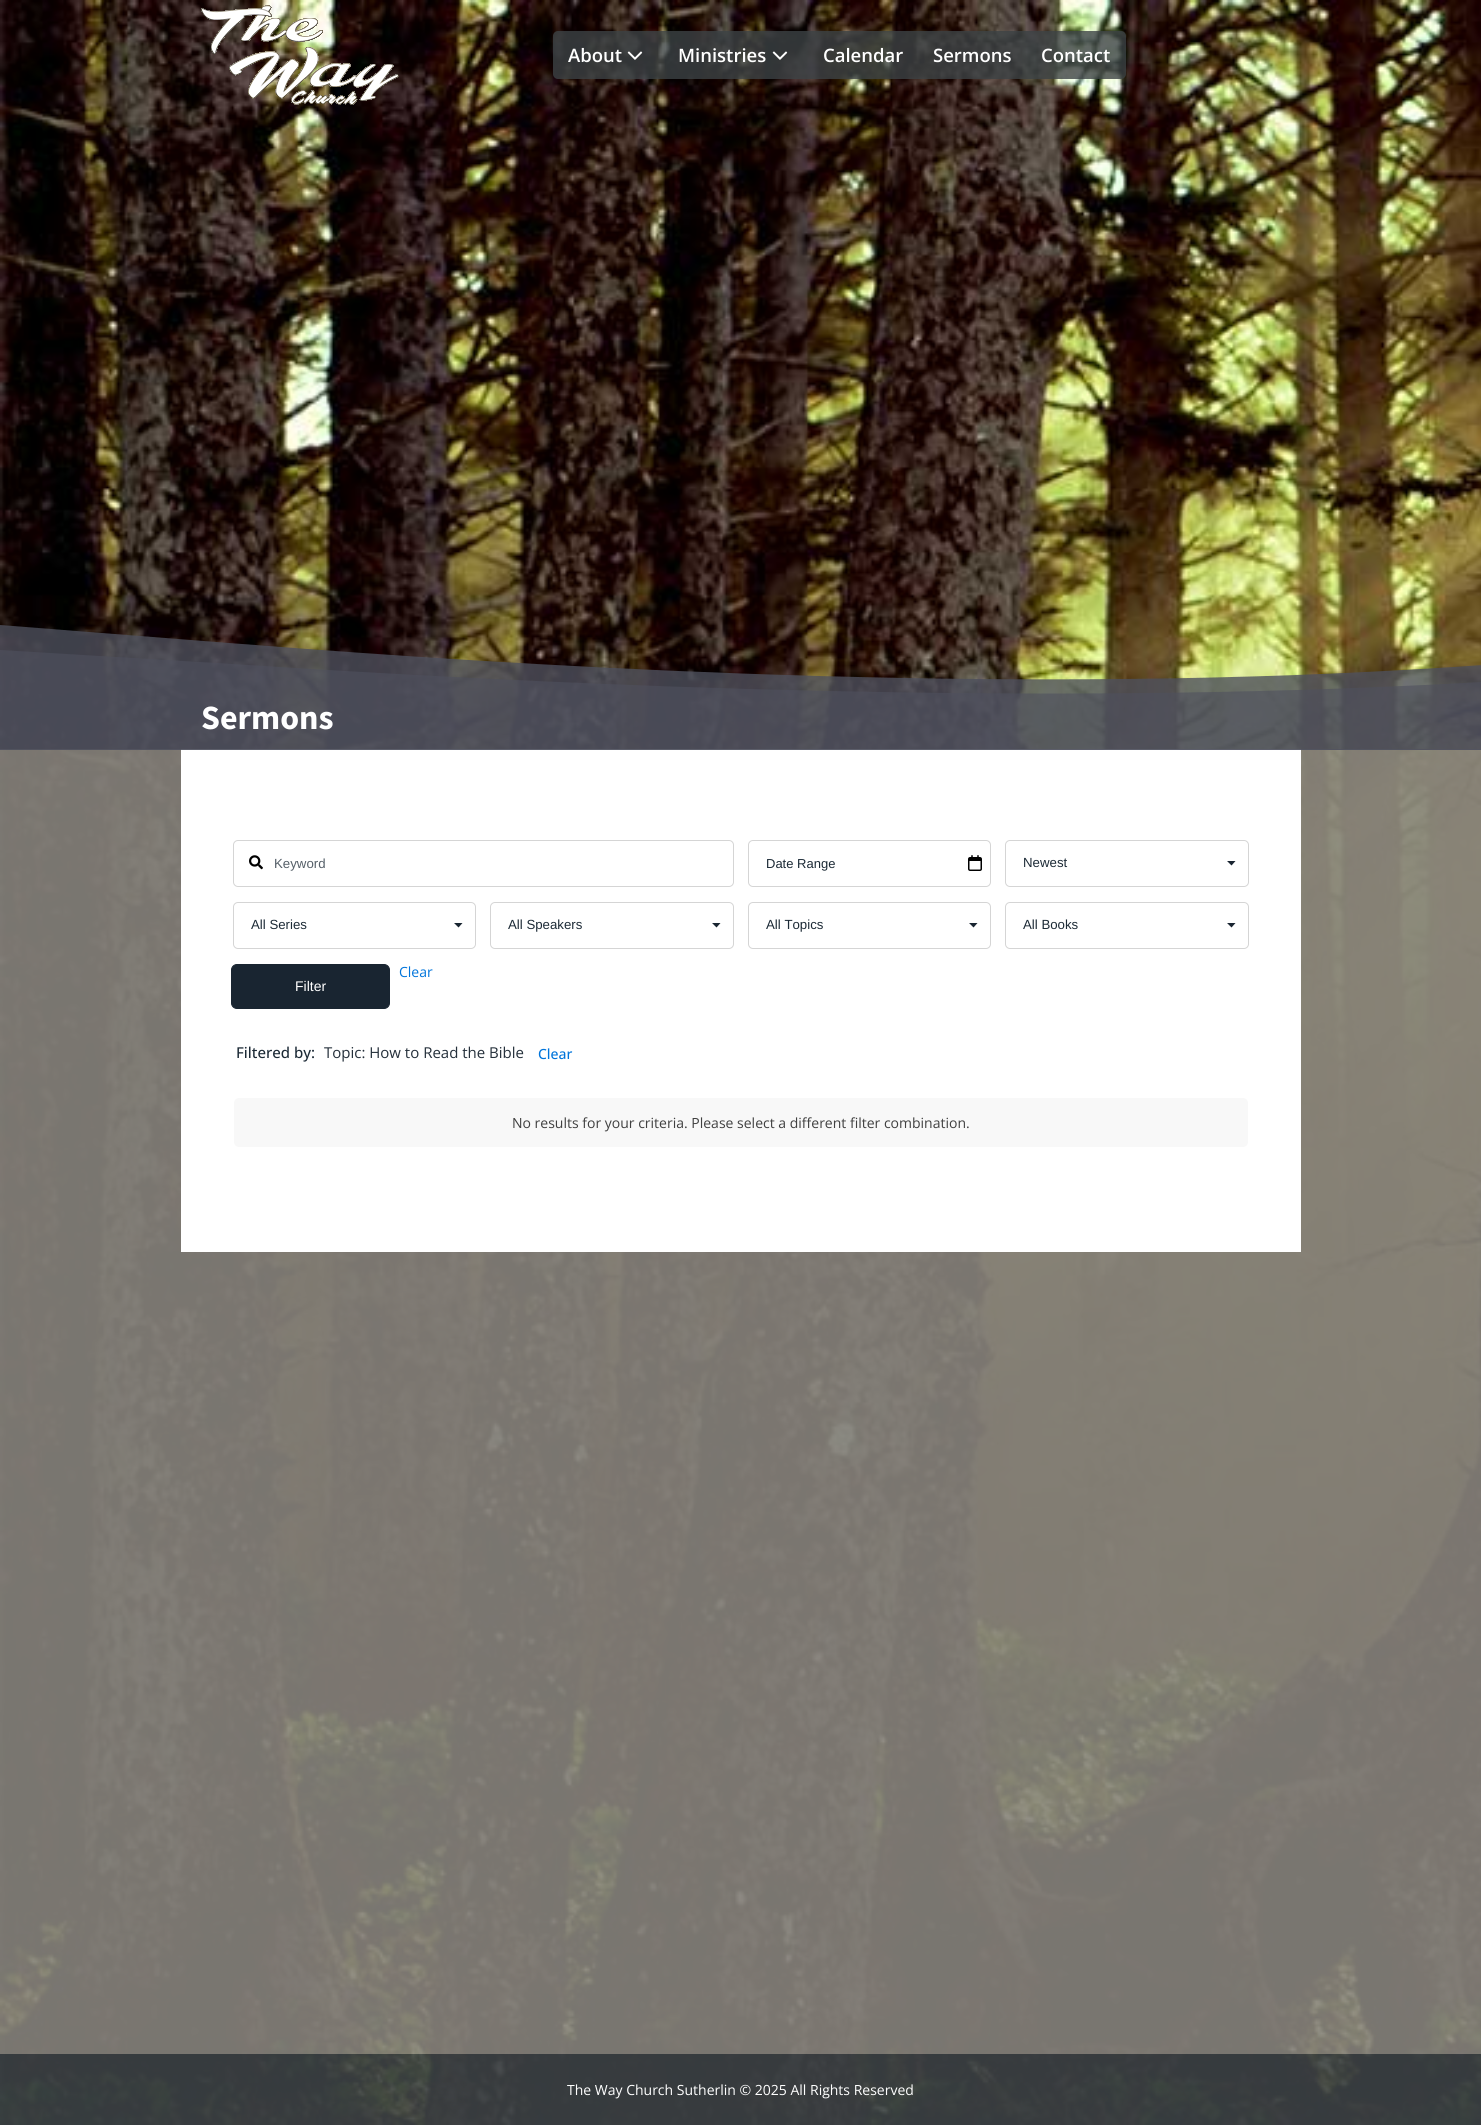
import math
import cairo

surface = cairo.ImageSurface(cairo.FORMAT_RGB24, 1481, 2125)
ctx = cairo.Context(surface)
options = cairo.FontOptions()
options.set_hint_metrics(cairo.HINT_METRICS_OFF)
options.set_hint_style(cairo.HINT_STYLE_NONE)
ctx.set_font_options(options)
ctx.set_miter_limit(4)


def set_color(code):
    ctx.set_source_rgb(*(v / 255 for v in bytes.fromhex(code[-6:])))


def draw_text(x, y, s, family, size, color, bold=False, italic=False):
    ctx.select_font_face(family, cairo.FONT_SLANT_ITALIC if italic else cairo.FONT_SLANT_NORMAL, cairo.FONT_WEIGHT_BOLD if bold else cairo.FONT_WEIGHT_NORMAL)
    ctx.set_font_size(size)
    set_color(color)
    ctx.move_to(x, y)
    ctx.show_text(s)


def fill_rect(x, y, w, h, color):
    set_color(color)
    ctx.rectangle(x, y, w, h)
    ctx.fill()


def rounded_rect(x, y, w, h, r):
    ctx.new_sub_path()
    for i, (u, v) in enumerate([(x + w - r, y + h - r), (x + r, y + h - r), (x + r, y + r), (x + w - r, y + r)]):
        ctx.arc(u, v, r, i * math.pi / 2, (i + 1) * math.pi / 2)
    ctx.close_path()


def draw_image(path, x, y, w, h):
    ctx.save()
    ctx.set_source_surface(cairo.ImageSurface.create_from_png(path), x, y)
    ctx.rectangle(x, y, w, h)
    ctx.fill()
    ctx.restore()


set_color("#ffffff")
ctx.paint()
draw_image("assets/img1.png", 0, 0, 1481, 2125)
draw_image("assets/img2.png", 201, 5, 198, 100)
ctx.set_source_rgba(0.235, 0.259, 0.271, 0.8)
rounded_rect(553, 31, 573, 48, 5)
ctx.fill()
draw_text(568, 62, "About", "Open Sans SemiBold", 18.5, "#ffffff")
draw_image("assets/img3.png", 627, 51, 16, 9)
draw_text(678, 62, "Ministries", "Open Sans SemiBold", 18.5, "#ffffff")
draw_image("assets/img4.png", 772, 51, 16, 9)
draw_text(823, 62, "Calendar", "Open Sans SemiBold", 18.5, "#ffffff")
draw_text(933, 62, "Sermons", "Open Sans SemiBold", 18.5, "#ffffff")
draw_text(1041, 62, "Contact", "Open Sans SemiBold", 18.5, "#ffffff")
ctx.set_source_rgba(0.529, 0.514, 0.49, 0.9)
ctx.rectangle(0, 749, 1481, 1305)
ctx.fill()
fill_rect(181, 749, 1120, 503, "#ffffff")
ctx.set_source_rgba(0.306, 0.314, 0.365, 0.8)
ctx.new_path()
ctx.move_to(0, 625)
ctx.line_to(216, 642)
ctx.curve_to(432, 659, 864, 691, 1296, 675)
ctx.curve_to(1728, 659, 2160, 591, 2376, 558)
ctx.line_to(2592, 525)
ctx.line_to(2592, 750)
ctx.line_to(0, 750)
ctx.close_path()
ctx.fill()
ctx.set_source_rgba(0.306, 0.314, 0.365, 0.6)
ctx.new_path()
ctx.move_to(0, 650)
ctx.line_to(216, 663)
ctx.curve_to(432, 677, 864, 703, 1296, 690)
ctx.curve_to(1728, 677, 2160, 623, 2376, 597)
ctx.line_to(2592, 570)
ctx.line_to(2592, 750)
ctx.line_to(0, 750)
ctx.close_path()
ctx.fill()
draw_text(201, 729, "Sermons", "Source Sans Pro", 34, "#ffffff", bold=True)
rounded_rect(233.5, 840.5, 500, 46, 4.5)
set_color("#d5d5d5")
ctx.set_line_width(1)
ctx.stroke()
draw_image("assets/img5.png", 249, 855, 14, 15)
draw_text(274, 868, "Keyword", "Liberation Sans", 13.25, "#555f68")
draw_image("assets/img6.png", 968, 855, 14, 16)
rounded_rect(748.5, 840.5, 242, 46, 4.5)
set_color("#d5d5d5")
ctx.stroke()
draw_text(766, 868, "Date Range", "Liberation Sans", 13, "#1c2a36")
set_color("#192531")
ctx.new_path()
ctx.move_to(1227, 861)
ctx.line_to(1235.5, 861)
ctx.line_to(1231.5, 865.5)
ctx.close_path()
ctx.fill()
rounded_rect(1005.5, 840.5, 243, 46, 4.5)
set_color("#d5d5d5")
ctx.stroke()
draw_text(1023, 867, "Newest", "Liberation Sans", 13.25, "#1c2a36")
set_color("#192531")
ctx.new_path()
ctx.move_to(454, 923)
ctx.line_to(462.5, 923)
ctx.line_to(458.5, 927.5)
ctx.close_path()
ctx.fill()
rounded_rect(233.5, 902.5, 242, 46, 4.5)
set_color("#d5d5d5")
ctx.stroke()
draw_text(251, 929, "All Series", "Liberation Sans", 13.25, "#1c2a36")
set_color("#192531")
ctx.new_path()
ctx.move_to(712, 923)
ctx.line_to(720.5, 923)
ctx.line_to(716.5, 927.5)
ctx.close_path()
ctx.fill()
rounded_rect(490.5, 902.5, 243, 46, 4.5)
set_color("#d5d5d5")
ctx.stroke()
draw_text(508, 929, "All Speakers", "Liberation Sans", 13.25, "#1c2a36")
set_color("#192531")
ctx.new_path()
ctx.move_to(969, 923)
ctx.line_to(977.5, 923)
ctx.line_to(973.5, 927.5)
ctx.close_path()
ctx.fill()
rounded_rect(748.5, 902.5, 242, 46, 4.5)
set_color("#d5d5d5")
ctx.stroke()
draw_text(766, 929, "All Topics", "Liberation Sans", 13.25, "#1c2a36")
set_color("#192531")
ctx.new_path()
ctx.move_to(1227, 923)
ctx.line_to(1235.5, 923)
ctx.line_to(1231.5, 927.5)
ctx.close_path()
ctx.fill()
rounded_rect(1005.5, 902.5, 243, 46, 4.5)
set_color("#d5d5d5")
ctx.stroke()
draw_text(1023, 929, "All Books", "Liberation Sans", 13.25, "#1c2a36")
draw_text(399, 977, "Clear", "Open Sans", 14, "#0074db")
set_color("#192531")
rounded_rect(231.5, 964.5, 158, 44, 5.5)
ctx.fill_preserve()
ctx.stroke()
draw_text(295, 991, "Filter", "Liberation Sans", 14, "#ffffff")
draw_text(236, 1058, "Filtered by:", "Open Sans Medium", 15, "#1c2a36")
draw_text(324, 1058, "Topic: How to Read the Bible", "Open Sans", 15, "#25303b")
draw_text(538, 1059, "Clear", "Open Sans Medium", 14, "#0074db")
set_color("#f8f8f8")
rounded_rect(234, 1098, 1014, 49, 5)
ctx.fill()
draw_text(512, 1128, "No results for your criteria. Please select a different filter combination.", "Open Sans", 14, "#404040")
ctx.set_source_rgba(0.235, 0.259, 0.271, 0.9)
ctx.rectangle(0, 2054, 1481, 71)
ctx.fill()
draw_text(567, 2095, "The Way Church Sutherlin © 2025 All Rights Reserved", "Open Sans", 14, "#ffffff")
surface.write_to_png("output.png")
